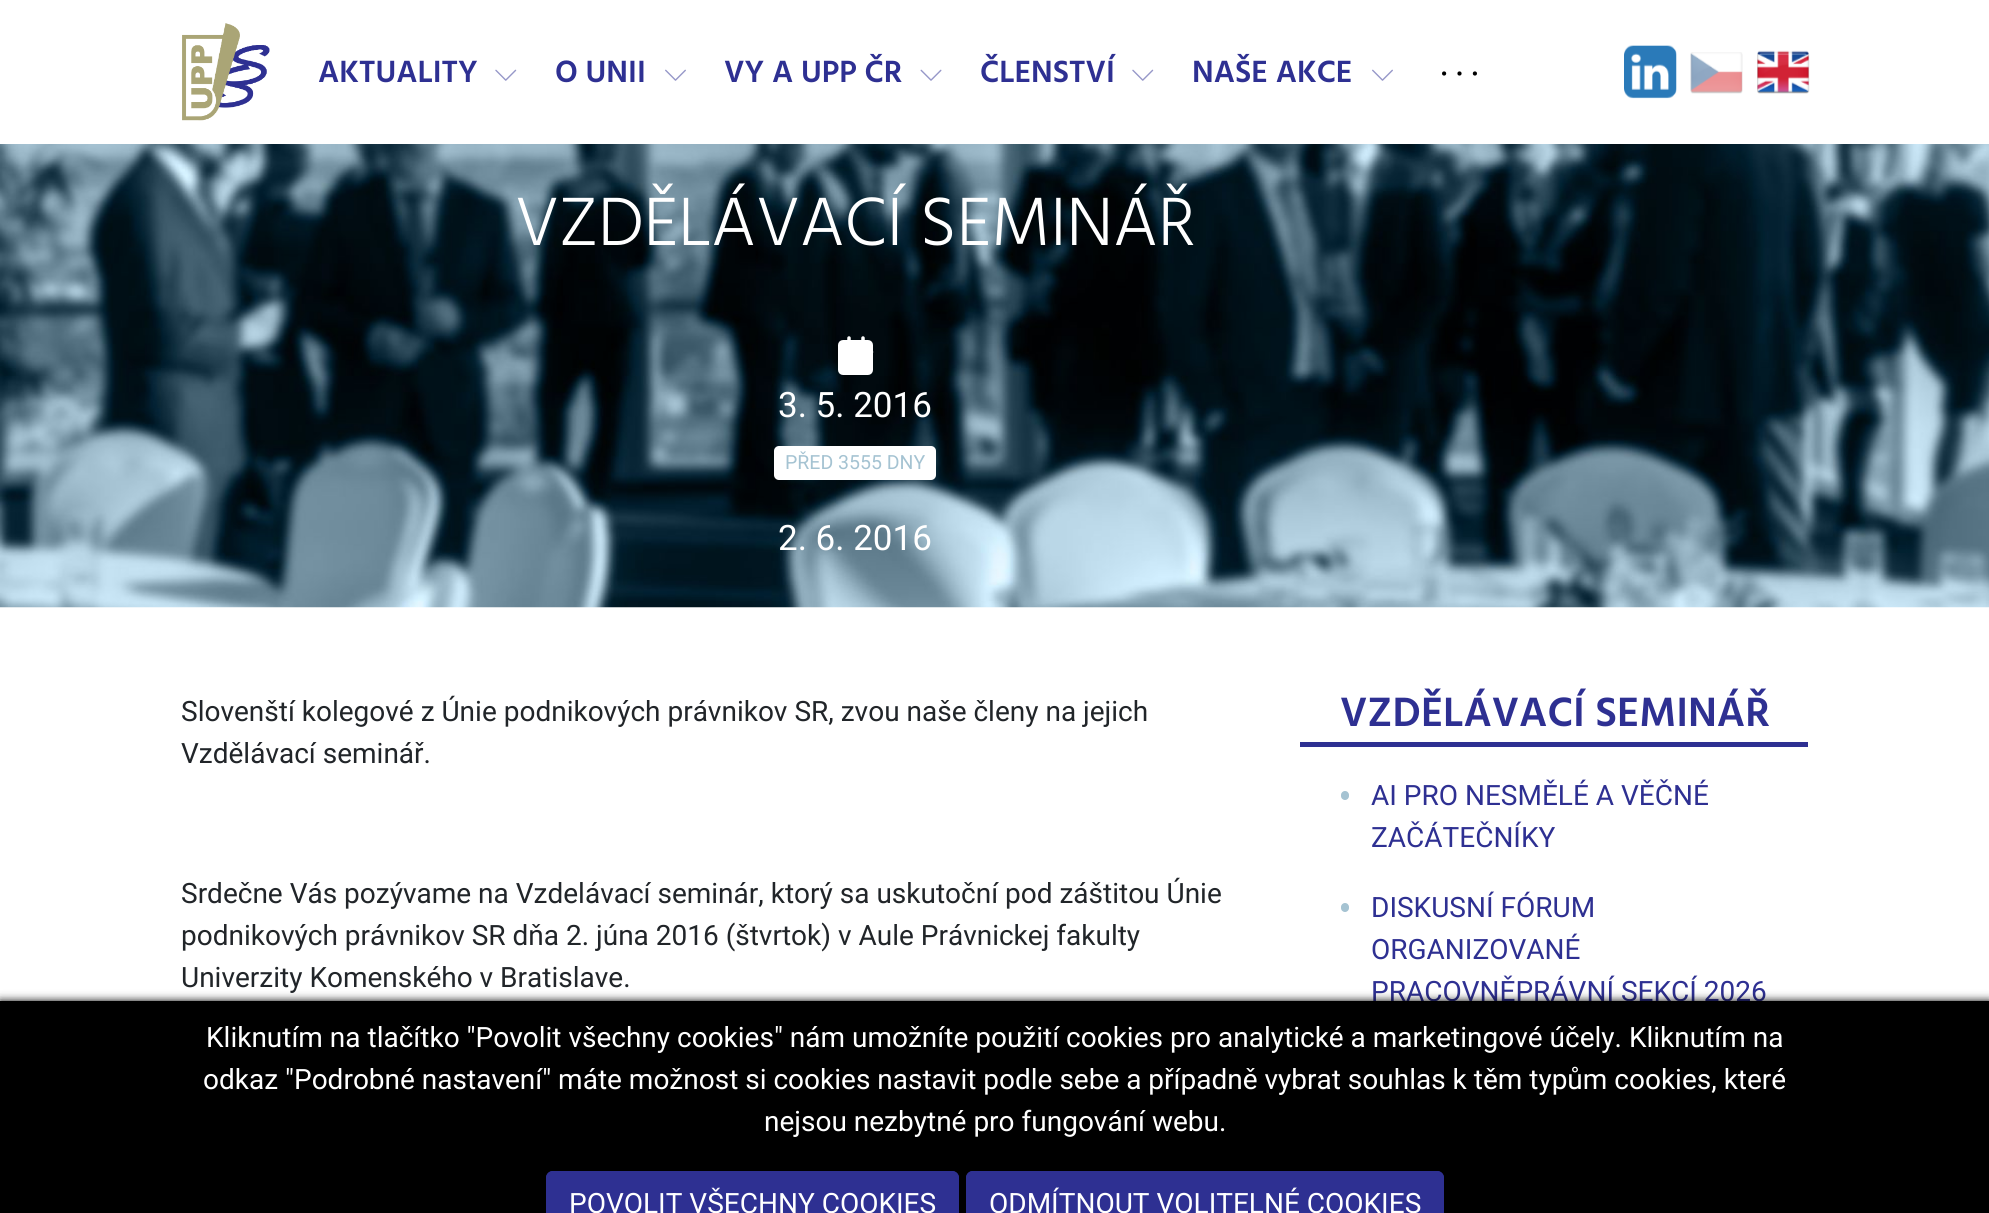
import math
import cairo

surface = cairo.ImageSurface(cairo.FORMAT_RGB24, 1989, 1213)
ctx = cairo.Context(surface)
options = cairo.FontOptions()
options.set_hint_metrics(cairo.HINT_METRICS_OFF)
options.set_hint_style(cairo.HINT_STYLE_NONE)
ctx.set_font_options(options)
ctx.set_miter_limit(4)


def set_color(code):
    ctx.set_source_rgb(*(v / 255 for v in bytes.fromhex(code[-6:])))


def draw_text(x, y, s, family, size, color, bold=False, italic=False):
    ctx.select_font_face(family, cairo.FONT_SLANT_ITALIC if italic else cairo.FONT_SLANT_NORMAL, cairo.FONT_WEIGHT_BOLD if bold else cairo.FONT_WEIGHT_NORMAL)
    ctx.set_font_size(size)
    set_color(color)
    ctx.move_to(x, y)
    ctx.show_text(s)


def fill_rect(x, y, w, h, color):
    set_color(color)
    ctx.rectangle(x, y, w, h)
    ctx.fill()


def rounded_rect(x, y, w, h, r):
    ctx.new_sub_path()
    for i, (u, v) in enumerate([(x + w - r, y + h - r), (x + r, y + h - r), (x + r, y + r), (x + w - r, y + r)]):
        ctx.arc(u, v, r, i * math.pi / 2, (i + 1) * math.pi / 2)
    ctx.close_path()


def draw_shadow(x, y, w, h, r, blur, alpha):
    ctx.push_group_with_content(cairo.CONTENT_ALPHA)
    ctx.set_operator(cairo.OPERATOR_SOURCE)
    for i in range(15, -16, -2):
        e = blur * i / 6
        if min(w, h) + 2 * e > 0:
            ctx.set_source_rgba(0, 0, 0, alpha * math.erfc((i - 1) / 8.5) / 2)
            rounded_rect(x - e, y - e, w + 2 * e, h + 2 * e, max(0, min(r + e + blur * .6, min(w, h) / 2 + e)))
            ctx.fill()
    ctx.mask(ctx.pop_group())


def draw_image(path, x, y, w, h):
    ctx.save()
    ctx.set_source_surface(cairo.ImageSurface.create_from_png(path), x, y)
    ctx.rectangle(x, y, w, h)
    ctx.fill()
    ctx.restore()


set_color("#ffffff")
ctx.paint()
draw_image("assets/img1.png", 182, 23, 88, 98)
draw_text(318, 82, "AKTUALITY", "Hind SemiBold", 31.5, "#2e3092")
draw_image("assets/img2.png", 495, 69, 22, 12)
draw_text(555, 82, "O UNII", "Hind SemiBold", 31.5, "#2e3092")
draw_image("assets/img3.png", 665, 69, 21, 12)
draw_text(724, 82, "VY A UPP ČR", "Hind SemiBold", 31.5, "#2e3092")
draw_image("assets/img4.png", 920, 69, 22, 12)
draw_text(980, 82, "ČLENSTVÍ", "Hind SemiBold", 31.5, "#2e3092")
draw_image("assets/img2.png", 1132, 69, 22, 12)
draw_text(1192, 82, "NAŠE AKCE", "Hind SemiBold", 31.5, "#2e3092")
draw_image("assets/img3.png", 1372, 69, 21, 12)
set_color("#000000")
ctx.arc(1444.1, 73.5, 2.1, 0, 2 * math.pi)
ctx.fill()
ctx.arc(1459.5, 73.5, 2.1, 0, 2 * math.pi)
ctx.fill()
ctx.arc(1474.9, 73.5, 2.1, 0, 2 * math.pi)
ctx.fill()
draw_image("assets/img5.png", 1624, 45, 53, 54)
draw_image("assets/img6.png", 1690, 52, 53, 42)
draw_image("assets/img7.png", 1757, 50, 53, 44)
draw_image("assets/img8.png", 0, 144, 1989, 464)
draw_text(515, 245, "VZDĚLÁVACÍ SEMINÁŘ", "Hind Light", 70, "#ffffff")
rounded_rect(839.75, 341.75, 31.5, 31.5, 3.25)
ctx.fill_preserve()
ctx.set_line_width(3.5)
ctx.stroke()
ctx.new_path()
ctx.move_to(863, 338)
ctx.line_to(863, 345)
ctx.move_to(849, 338)
ctx.line_to(849, 345)
ctx.move_to(840, 352)
ctx.line_to(871.5, 352)
ctx.set_line_cap(cairo.LINE_CAP_ROUND)
ctx.set_line_join(cairo.LINE_JOIN_ROUND)
ctx.stroke()
draw_text(778, 417, "3. 5. 2016", "Roboto", 35, "#ffffff")
rounded_rect(774, 446, 162, 34, 5)
ctx.fill()
draw_text(785, 469, "PŘED 3555 DNY", "Roboto", 19.5, "#a5c3d2")
draw_text(778, 550, "2. 6. 2016", "Roboto", 35, "#ffffff")
draw_text(181, 721, "Slovenští kolegové z Únie podnikových právnikov SR, zvou naše členy na jejich", "Roboto", 28, "#212529")
draw_text(181, 763, "Vzdělávací seminář.", "Roboto", 28, "#212529")
draw_text(181, 903, "Srdečne Vás pozývame na Vzdelávací seminár, ktorý sa uskutoční pod záštitou Únie", "Roboto", 28, "#212529")
draw_text(181, 945, "podnikových právnikov SR dňa 2. júna 2016 (štvrtok) v Aule Právnickej fakulty", "Roboto", 28, "#212529")
draw_text(181, 987, "Univerzity Komenského v Bratislave.", "Roboto", 28, "#212529")
fill_rect(1300, 742, 508, 5, "#2e3092")
draw_text(1340, 726, "VZDĚLÁVACÍ SEMINÁŘ", "Hind SemiBold", 42, "#2e3092")
set_color("#a5c3d2")
rounded_rect(1341, 791, 8, 9, 4)
ctx.fill()
draw_text(1371, 805, "AI PRO NESMĚLÉ A VĚČNÉ", "Roboto", 28, "#2e3092")
draw_text(1371, 847, "ZAČÁTEČNÍKY", "Roboto", 28, "#2e3092")
set_color("#a5c3d2")
rounded_rect(1341, 903, 8, 9, 4)
ctx.fill()
draw_text(1371, 917, "DISKUSNÍ FÓRUM", "Roboto", 28, "#2e3092")
draw_text(1371, 959, "ORGANIZOVANÉ", "Roboto", 28, "#2e3092")
draw_text(1371, 1001, "PRACOVNĚPRÁVNÍ SEKCÍ 2026", "Roboto", 28, "#2e3092")
set_color("#000000")
draw_shadow(0, 1001, 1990, 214, 0, 4.5, 1)
fill_rect(0, 1001, 1989, 212, "#000000")
draw_text(206, 1047, "Kliknutím na tlačítko \"Povolit všechny cookies\" nám umožníte použití cookies pro analytické a marketingové účely. Kliknutím na", "Roboto", 28, "#ffffff")
draw_text(203, 1089, "odkaz \"Podrobné nastavení\" máte možnost si cookies nastavit podle sebe a případně vybrat souhlas k těm typům cookies, které", "Roboto", 28, "#ffffff")
draw_text(764, 1131, "nejsou nezbytné pro fungování webu.", "Roboto", 28, "#ffffff")
set_color("#2e3092")
ctx.new_path()
ctx.move_to(553, 1171)
ctx.line_to(952, 1171)
ctx.curve_to(956, 1171, 959, 1174, 959, 1178)
ctx.line_to(959, 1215)
ctx.line_to(546, 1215)
ctx.line_to(546, 1178)
ctx.curve_to(546, 1174, 549, 1171, 553, 1171)
ctx.close_path()
ctx.fill()
rounded_rect(547, 1172, 411, 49, 6)
ctx.set_line_width(2)
ctx.set_line_cap(cairo.LINE_CAP_BUTT)
ctx.set_line_join(cairo.LINE_JOIN_MITER)
ctx.stroke()
draw_text(569, 1213, "POVOLIT VŠECHNY COOKIES", "Roboto", 28, "#ffffff")
set_color("#2e3092")
ctx.new_path()
ctx.move_to(973, 1171)
ctx.line_to(1437, 1171)
ctx.curve_to(1441, 1171, 1444, 1174, 1444, 1178)
ctx.line_to(1444, 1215)
ctx.line_to(966, 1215)
ctx.line_to(966, 1178)
ctx.curve_to(966, 1174, 969, 1171, 973, 1171)
ctx.close_path()
ctx.fill()
rounded_rect(967, 1172, 476, 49, 6)
ctx.stroke()
draw_text(989, 1213, "ODMÍTNOUT VOLITELNÉ COOKIES", "Roboto", 28, "#ffffff")
surface.write_to_png("output.png")
